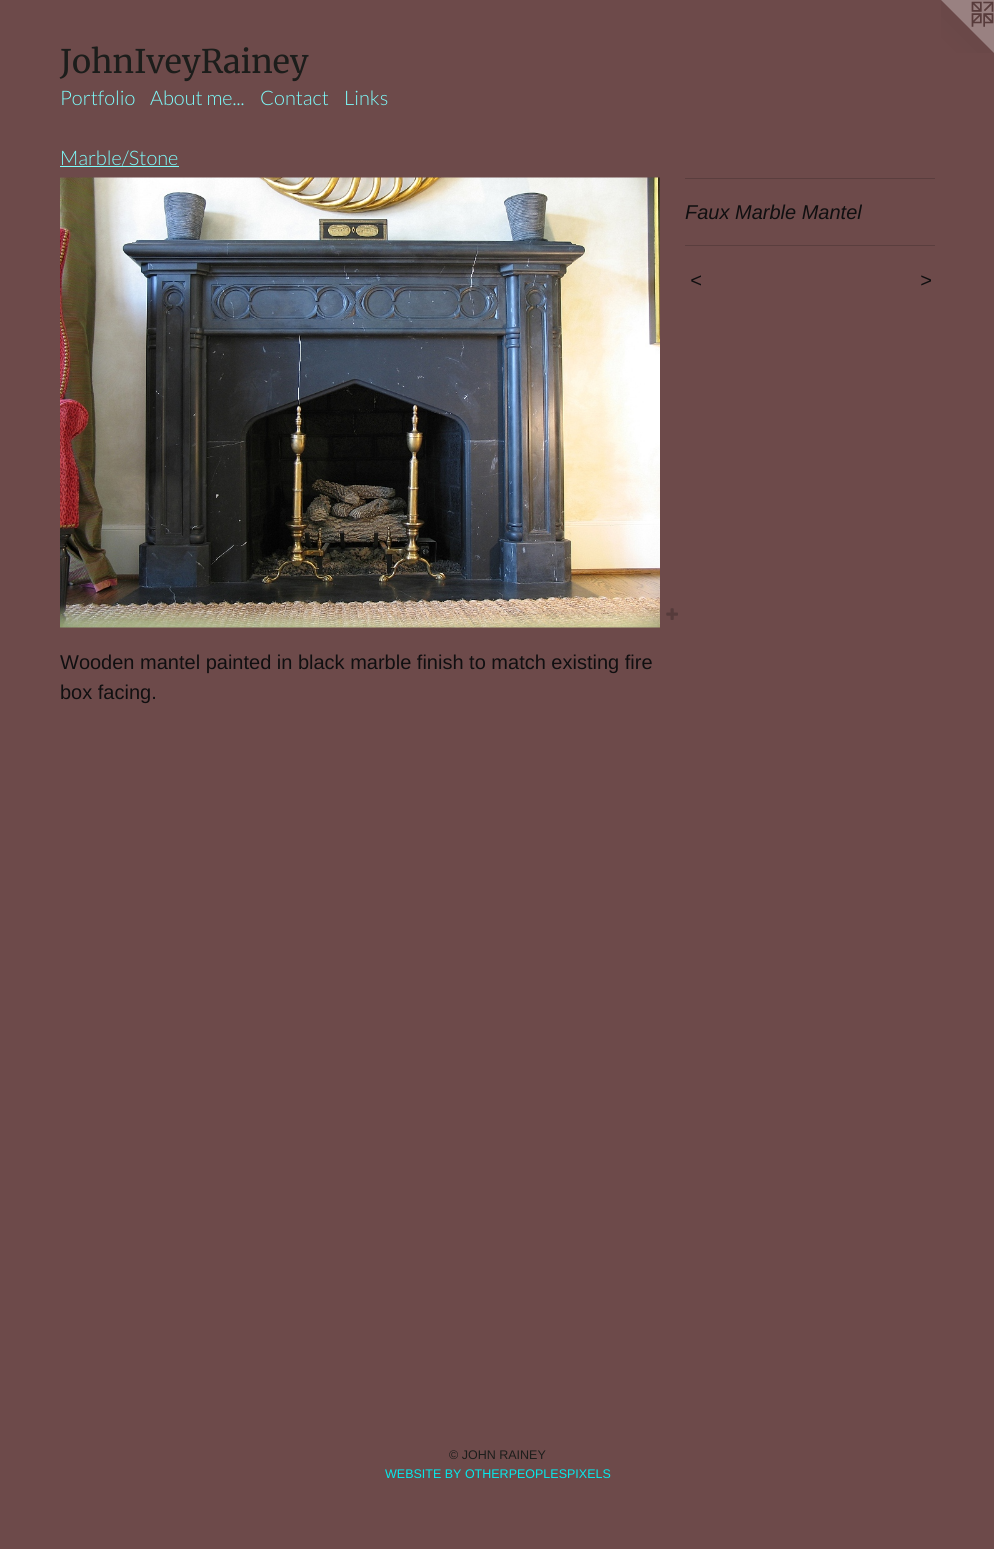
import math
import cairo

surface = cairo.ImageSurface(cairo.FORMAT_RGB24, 994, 1549)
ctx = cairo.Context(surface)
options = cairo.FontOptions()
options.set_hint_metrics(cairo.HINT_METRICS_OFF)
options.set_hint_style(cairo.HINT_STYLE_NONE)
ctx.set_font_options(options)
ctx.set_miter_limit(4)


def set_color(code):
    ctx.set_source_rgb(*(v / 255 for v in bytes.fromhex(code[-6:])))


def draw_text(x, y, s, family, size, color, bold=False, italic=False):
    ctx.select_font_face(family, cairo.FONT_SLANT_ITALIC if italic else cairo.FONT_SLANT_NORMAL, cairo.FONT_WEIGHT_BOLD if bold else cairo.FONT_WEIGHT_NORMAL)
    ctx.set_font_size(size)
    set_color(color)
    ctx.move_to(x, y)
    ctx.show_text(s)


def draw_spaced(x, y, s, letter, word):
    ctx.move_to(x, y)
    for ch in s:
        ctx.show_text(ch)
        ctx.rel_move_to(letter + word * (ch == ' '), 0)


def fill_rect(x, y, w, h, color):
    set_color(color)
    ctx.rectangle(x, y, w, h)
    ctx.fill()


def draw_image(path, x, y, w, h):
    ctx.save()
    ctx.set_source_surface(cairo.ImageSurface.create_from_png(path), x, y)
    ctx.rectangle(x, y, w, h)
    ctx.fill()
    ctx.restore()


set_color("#6d4a4a")
ctx.paint()
draw_image("assets/img1.png", 941, 0, 53, 53)
draw_text(60, 73, "JohnIveyRainey", "Merriweather Light", 32.5, "#1c1d1b")
draw_text(60, 105, "Portfolio", "Lato Light", 20, "#7dfcfb")
draw_text(150, 105, "About me...", "Lato Light", 20, "#7dfcfb")
draw_text(260, 105, "Contact", "Lato Light", 20, "#7dfcfb")
draw_text(344, 105, "Links", "Lato Light", 20, "#7dfcfb")
draw_text(60, 165, "Marble/Stone", "Lato Light", 20, "#7dfcfb")
fill_rect(60, 166, 119, 1, "#7dfcfb")
draw_image("assets/img2.png", 60, 177, 600, 451)
draw_image("assets/img3.png", 666, 608, 12, 12)
fill_rect(685, 178, 250, 1, "#5a3e3e")
draw_text(685, 219, "Faux Marble Mantel", "Liberation Sans", 20, "#100f10", italic=True)
fill_rect(685, 245, 250, 1, "#5a3e3e")
set_color("#100f10")
draw_spaced(690, 287, "<", 1, 0)
draw_spaced(920, 287, ">", 1, 0)
draw_text(60, 669, "Wooden mantel painted in black marble finish to match existing fire", "Liberation Sans", 20, "#100f10")
draw_text(60, 699, "box facing.", "Liberation Sans", 20, "#100f10")
draw_text(449, 1459, "© JOHN RAINEY", "Liberation Sans", 12.5, "#1c1d1b")
draw_text(385, 1478, "WEBSITE BY OTHERPEOPLESPIXELS", "Liberation Sans", 12.5, "#04eaec")
surface.write_to_png("output.png")
